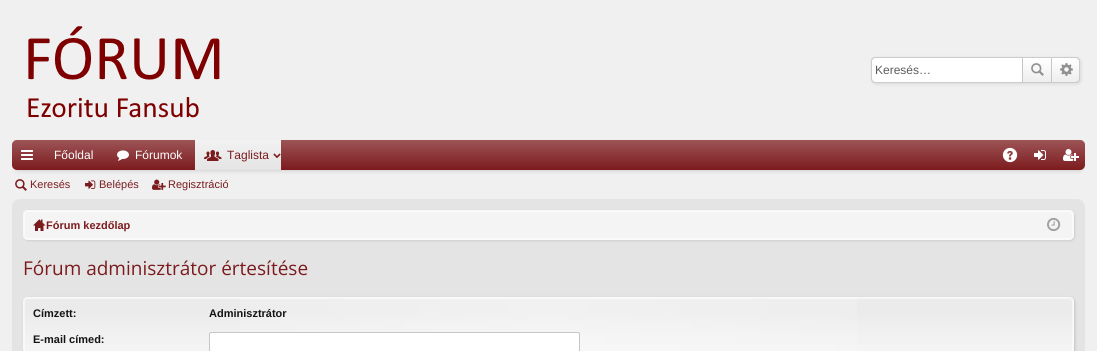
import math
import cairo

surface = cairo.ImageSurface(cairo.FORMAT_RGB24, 1097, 351)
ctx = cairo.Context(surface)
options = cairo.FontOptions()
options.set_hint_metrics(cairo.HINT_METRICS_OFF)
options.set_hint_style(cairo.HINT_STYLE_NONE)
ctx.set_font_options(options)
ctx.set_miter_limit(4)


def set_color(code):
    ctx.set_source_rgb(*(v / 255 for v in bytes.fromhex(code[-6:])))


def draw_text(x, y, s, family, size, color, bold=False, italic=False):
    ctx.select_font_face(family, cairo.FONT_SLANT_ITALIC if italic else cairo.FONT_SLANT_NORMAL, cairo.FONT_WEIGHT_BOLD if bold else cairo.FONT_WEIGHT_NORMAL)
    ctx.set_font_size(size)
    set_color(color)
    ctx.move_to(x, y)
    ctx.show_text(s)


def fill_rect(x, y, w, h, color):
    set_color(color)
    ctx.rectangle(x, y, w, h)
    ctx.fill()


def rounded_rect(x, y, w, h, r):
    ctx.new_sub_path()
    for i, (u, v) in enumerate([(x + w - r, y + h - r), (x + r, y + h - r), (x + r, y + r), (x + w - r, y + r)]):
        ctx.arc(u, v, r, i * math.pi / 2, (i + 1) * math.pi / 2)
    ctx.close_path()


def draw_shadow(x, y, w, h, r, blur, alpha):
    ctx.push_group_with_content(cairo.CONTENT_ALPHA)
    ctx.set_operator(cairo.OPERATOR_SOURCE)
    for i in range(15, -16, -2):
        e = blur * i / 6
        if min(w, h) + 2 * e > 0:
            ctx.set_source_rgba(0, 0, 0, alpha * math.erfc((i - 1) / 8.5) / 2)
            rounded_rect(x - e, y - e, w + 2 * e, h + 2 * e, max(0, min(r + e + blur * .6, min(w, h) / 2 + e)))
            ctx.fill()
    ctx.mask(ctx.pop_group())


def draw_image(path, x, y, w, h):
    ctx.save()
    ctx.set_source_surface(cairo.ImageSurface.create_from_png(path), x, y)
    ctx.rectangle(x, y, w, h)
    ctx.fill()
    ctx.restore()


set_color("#f0f0f0")
ctx.paint()
draw_image("assets/img1.png", 28, 26, 192, 92)
set_color("#000000")
draw_shadow(872, 58, 209, 26, 4, 1.5, 0.1)
rounded_rect(871.5, 57.5, 208, 25, 3.5)
set_color("#cccccc")
ctx.set_line_width(1)
ctx.stroke()
set_color("#ffffff")
ctx.new_path()
ctx.move_to(876, 58)
ctx.line_to(1022, 58)
ctx.line_to(1022, 82)
ctx.line_to(876, 82)
ctx.curve_to(874, 82, 872, 80, 872, 78)
ctx.line_to(872, 62)
ctx.curve_to(872, 60, 874, 58, 876, 58)
ctx.close_path()
ctx.fill()
draw_text(875, 74, "Keresés…", "Liberation Sans", 12, "#5b5b5b")
gradient = cairo.LinearGradient(1037, 58, 1037, 82)
gradient.add_color_stop_rgba(0, 1, 1, 1, 1)
gradient.add_color_stop_rgba(1, 0.933, 0.933, 0.933, 1)
ctx.set_source(gradient)
ctx.rectangle(1023, 58, 28, 24)
ctx.fill()
fill_rect(1051, 58, 1, 24, "#c6c6c6")
fill_rect(1022, 58, 1, 24, "#c6c6c6")
draw_image("assets/img2.png", 1031, 63, 13, 13)
gradient = cairo.LinearGradient(1066, 58, 1066, 82)
gradient.add_color_stop_rgba(0, 1, 1, 1, 1)
gradient.add_color_stop_rgba(1, 0.933, 0.933, 0.933, 1)
ctx.set_source(gradient)
ctx.new_path()
ctx.move_to(1052, 58)
ctx.line_to(1075, 58)
ctx.curve_to(1077, 58, 1079, 60, 1079, 62)
ctx.line_to(1079, 78)
ctx.curve_to(1079, 80, 1077, 82, 1075, 82)
ctx.line_to(1052, 82)
ctx.close_path()
ctx.fill()
draw_image("assets/img3.png", 1060, 63, 13, 13)
set_color("#000000")
draw_shadow(17, 150, 1063, 20, 0, 2.5, 0.2)
set_color("#7c1b1e")
rounded_rect(12, 140, 1073, 30, 5)
ctx.fill()
gradient = cairo.LinearGradient(549, 140, 549, 170)
gradient.add_color_stop_rgba(0, 1, 1, 1, 0.25)
gradient.add_color_stop_rgba(1, 1, 1, 1, 0)
ctx.set_source(gradient)
rounded_rect(12, 140, 1073, 30, 5)
ctx.fill()
draw_image("assets/img4.png", 21, 150, 12, 10)
draw_text(54, 159, "Főoldal", "Liberation Sans", 12, "#ffffff")
draw_image("assets/img5.png", 117, 150, 12, 11)
draw_text(135, 159, "Fórumok", "Liberation Sans", 12, "#ffffff")
gradient = cairo.LinearGradient(238, 140, 238, 170)
gradient.add_color_stop_rgba(0, 0.949, 0.949, 0.949, 1)
gradient.add_color_stop_rgba(1, 0.894, 0.894, 0.894, 1)
ctx.set_source(gradient)
ctx.rectangle(195, 140, 86, 30)
ctx.fill()
draw_image("assets/img6.png", 204, 150, 18, 11)
draw_text(227, 159, "Taglista", "Liberation Sans", 12, "#7c1b1e")
draw_image("assets/img7.png", 273, 153, 8, 6)
draw_image("assets/img8.png", 1002, 147, 16, 16)
draw_image("assets/img9.png", 1034, 150, 12, 10)
draw_image("assets/img10.png", 1063, 149, 16, 12)
draw_image("assets/img11.png", 15, 179, 12, 12)
draw_text(30, 188, "Keresés", "Liberation Sans", 11, "#7c1b1e")
draw_image("assets/img12.png", 85, 180, 11, 9)
draw_text(99, 188, "Belépés", "Liberation Sans", 11, "#7c1b1e")
draw_image("assets/img13.png", 152, 179, 14, 11)
draw_text(168, 188, "Regisztráció", "Liberation Sans", 11, "#7c1b1e")
set_color("#e4e4e4")
rounded_rect(12.5, 199.5, 1072, 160, 7.5)
ctx.fill_preserve()
ctx.stroke()
set_color("#000000")
draw_shadow(24, 211, 1051, 30, 5, 1, 0.1)
set_color("#f4f4f4")
rounded_rect(23, 210, 1051, 30, 5)
ctx.fill()
rounded_rect(24.5, 211.5, 1048, 27, 3.5)
set_color("#fafafa")
ctx.stroke()
rounded_rect(23.5, 210.5, 1050, 29, 4.5)
set_color("#f9f9f9")
ctx.stroke()
draw_image("assets/img15.png", 38, 228, 1, 1)
draw_image("assets/img14.png", 33, 219, 13, 12)
draw_text(46, 229, "Fórum kezdőlap", "Liberation Sans", 11, "#7c1b1e", bold=True)
draw_image("assets/img16.png", 1047, 217, 14, 15)
draw_text(23, 275, "Fórum adminisztrátor értesítése", "Open Sans", 19, "#7c1b1e")
set_color("#000000")
draw_shadow(24, 298, 1051, 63, 5, 1.5, 0.15)
set_color("#f4f4f4")
rounded_rect(23, 297, 1051, 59, 5)
ctx.fill()
ctx.save()
rounded_rect(23, 297, 1051, 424, 5)
ctx.clip()
gradient = cairo.LinearGradient(549, 298, 549, 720)
gradient.add_color_stop_rgba(0, 0.8, 0.8, 0.8, 0.2)
gradient.add_color_stop_rgba(0.02, 0.8, 0.8, 0.8, 0.25)
gradient.add_color_stop_rgba(0.12, 0.8, 0.8, 0.8, 0)
ctx.set_source(gradient)
ctx.rectangle(23, 298, 1051, 47)
ctx.fill()
ctx.restore()
gradient = cairo.LinearGradient(24, 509, 1073, 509)
gradient.add_color_stop_rgba(0, 1, 1, 1, 0)
gradient.add_color_stop_rgba(0.5, 1, 1, 1, 0.3)
gradient.add_color_stop_rgba(1, 1, 1, 1, 0)
ctx.set_source(gradient)
ctx.rectangle(240, 298, 617, 53)
ctx.fill()
rounded_rect(24.5, 298.5, 1048, 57, 3.5)
ctx.set_source_rgba(1, 1, 1, 0.5)
ctx.stroke()
rounded_rect(23.5, 297.5, 1050, 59, 4.5)
set_color("#f9f9f9")
ctx.stroke()
draw_text(33, 317, "Címzett:", "Liberation Sans", 11, "#141414", bold=True)
draw_text(209, 317, "Adminisztrátor", "Liberation Sans", 11, "#141414", bold=True)
draw_text(33, 343, "E-mail címed:", "Liberation Sans", 11, "#141414", bold=True)
set_color("#ffffff")
rounded_rect(209.5, 332.5, 370, 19, 1.5)
ctx.fill_preserve()
set_color("#c6c6c6")
ctx.stroke()
surface.write_to_png("output.png")
